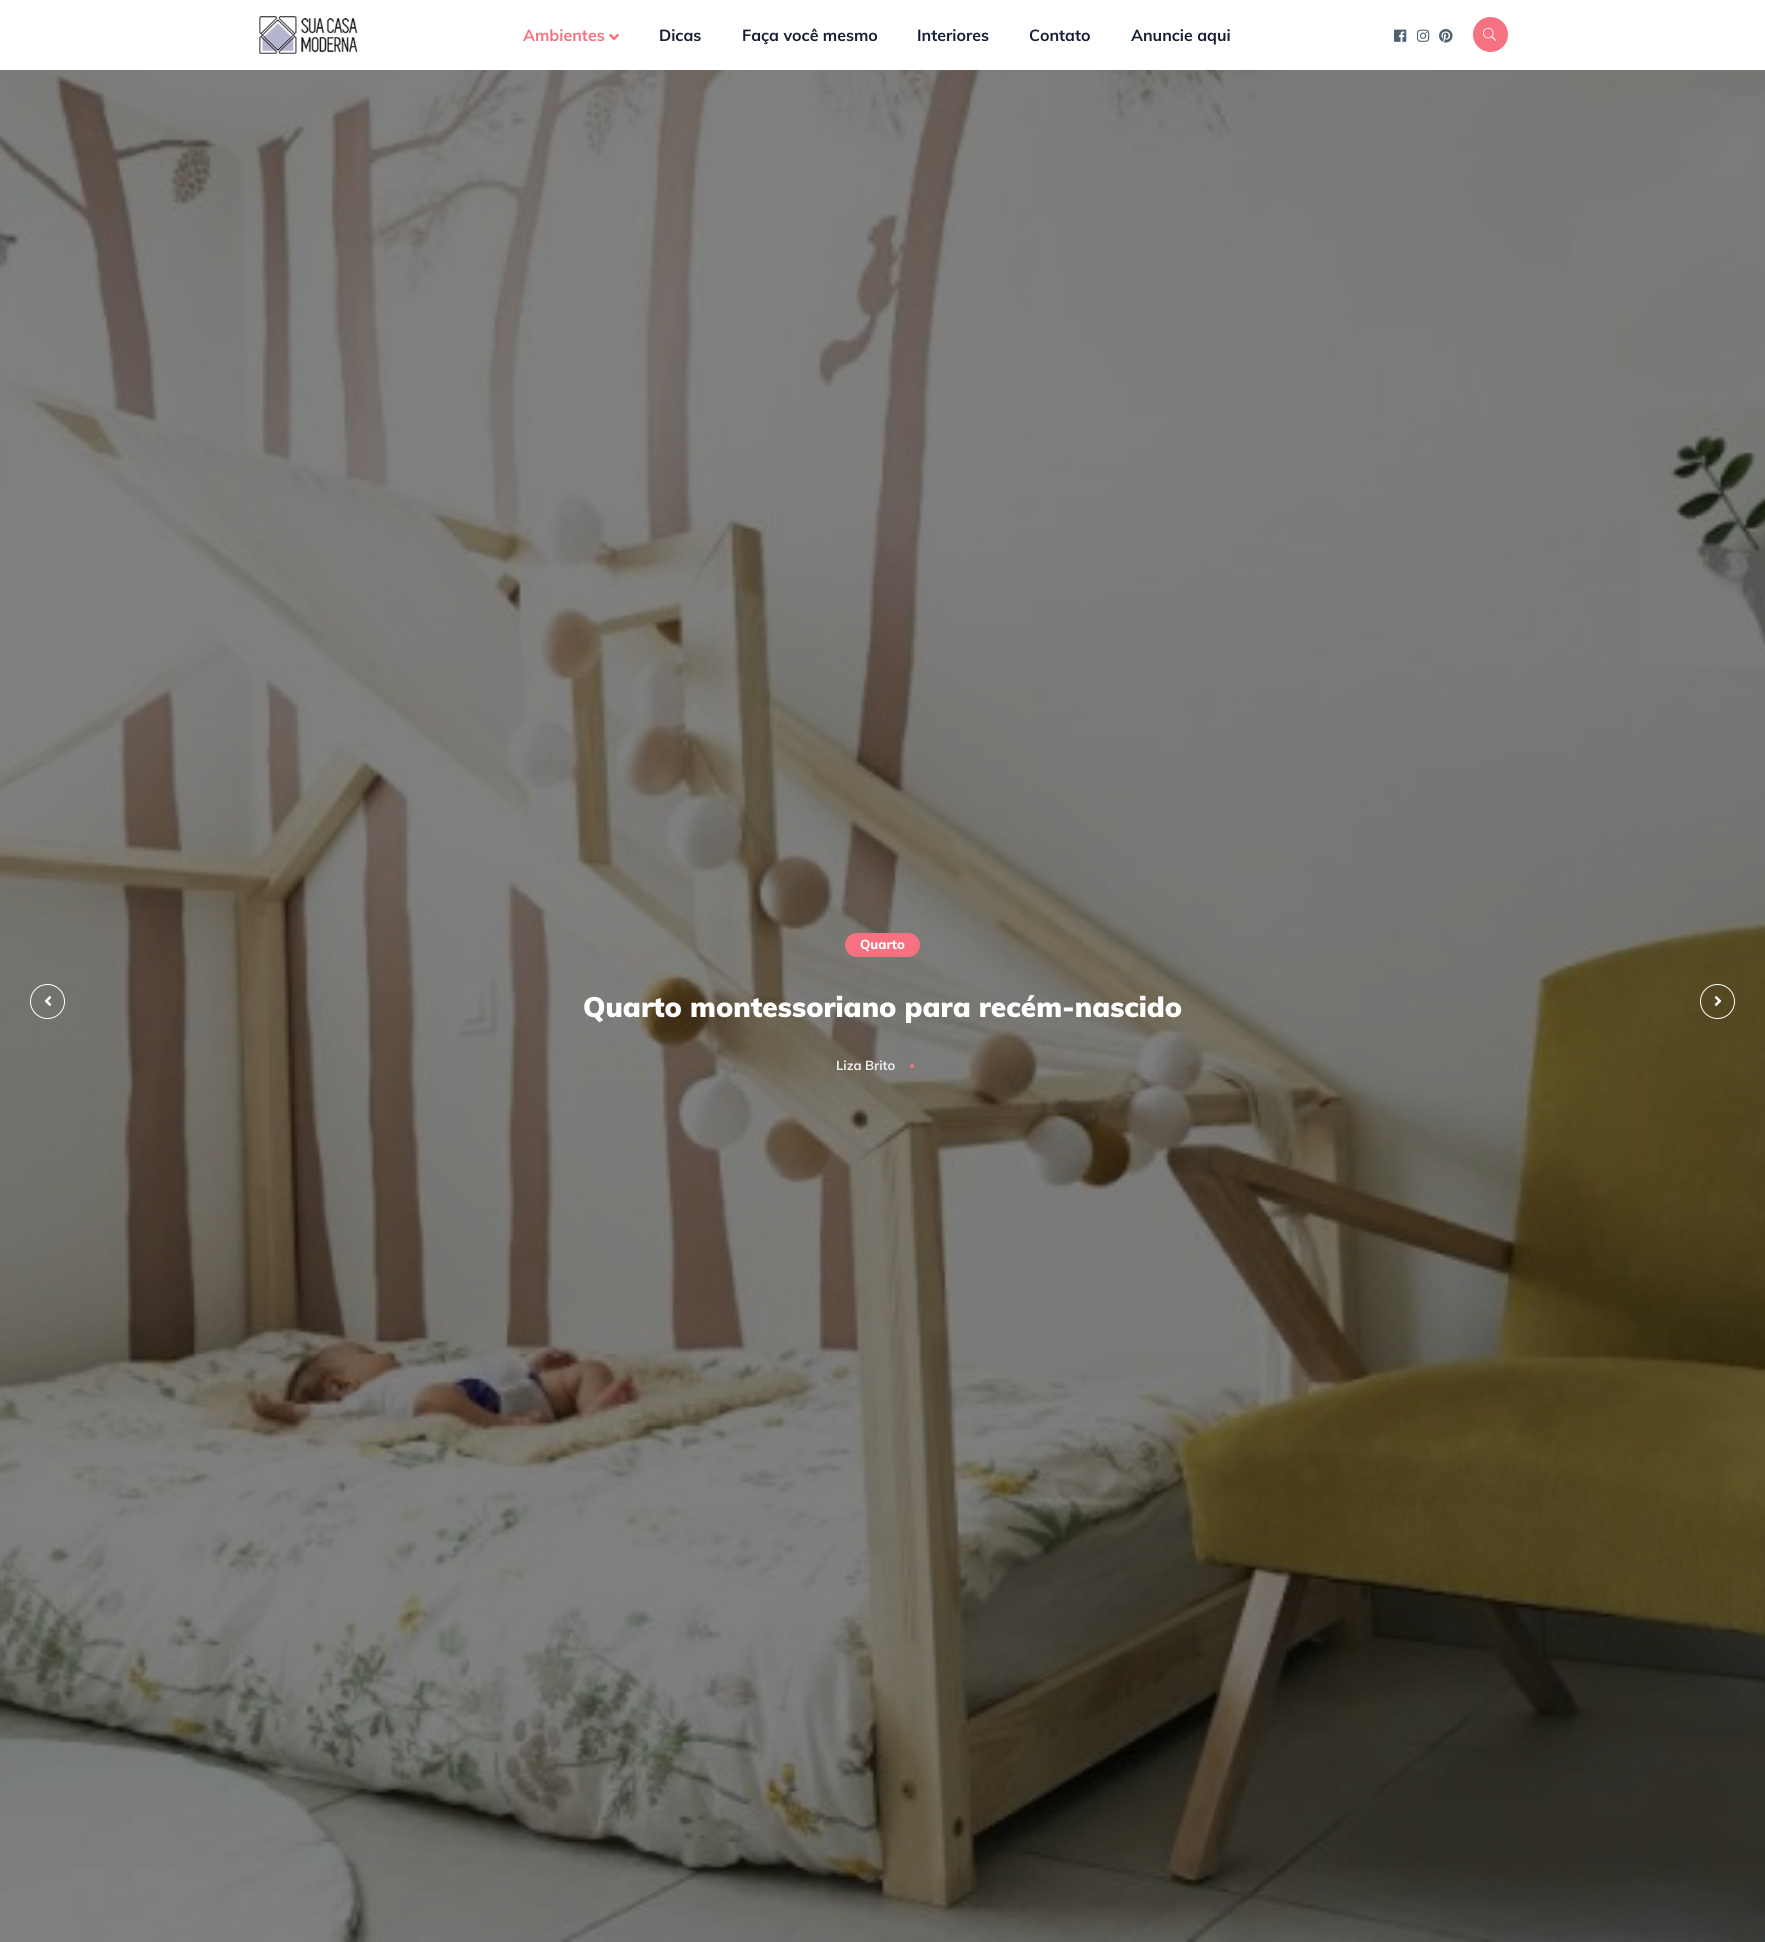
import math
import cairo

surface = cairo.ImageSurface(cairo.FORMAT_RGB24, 1765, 1942)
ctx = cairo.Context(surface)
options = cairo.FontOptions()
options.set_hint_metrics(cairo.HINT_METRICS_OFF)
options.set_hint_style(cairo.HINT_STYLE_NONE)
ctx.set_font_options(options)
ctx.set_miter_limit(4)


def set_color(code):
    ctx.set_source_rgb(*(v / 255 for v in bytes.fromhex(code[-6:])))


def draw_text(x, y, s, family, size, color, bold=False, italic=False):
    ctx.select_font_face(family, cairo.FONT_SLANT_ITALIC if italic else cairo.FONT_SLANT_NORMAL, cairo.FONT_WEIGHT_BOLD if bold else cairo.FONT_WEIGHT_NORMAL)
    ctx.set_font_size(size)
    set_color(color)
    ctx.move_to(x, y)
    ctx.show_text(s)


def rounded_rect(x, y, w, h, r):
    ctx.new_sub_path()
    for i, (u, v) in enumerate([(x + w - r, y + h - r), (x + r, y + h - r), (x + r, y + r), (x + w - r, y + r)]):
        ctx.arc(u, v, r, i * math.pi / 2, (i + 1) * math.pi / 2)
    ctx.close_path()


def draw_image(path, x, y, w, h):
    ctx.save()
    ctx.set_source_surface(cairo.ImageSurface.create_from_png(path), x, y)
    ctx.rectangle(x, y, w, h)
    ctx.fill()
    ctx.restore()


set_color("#ffffff")
ctx.paint()
draw_image("assets/img1.png", 259, 16, 99, 38)
draw_text(523, 41, "Ambientes", "Muli", 16, "#f67280", bold=True)
draw_image("assets/img2.png", 609, 33, 10, 8)
draw_text(659, 41, "Dicas", "Muli", 16, "#152035", bold=True)
draw_text(742, 41, "Faça você mesmo", "Muli", 16, "#152035", bold=True)
draw_text(917, 41, "Interiores", "Muli", 16, "#152035", bold=True)
draw_text(1029, 41, "Contato", "Muli", 16, "#152035", bold=True)
draw_text(1131, 41, "Anuncie aqui", "Muli", 16, "#152035", bold=True)
draw_image("assets/img3.png", 1394, 29, 13, 13)
draw_image("assets/img4.png", 1417, 29, 13, 13)
draw_image("assets/img5.png", 1439, 29, 14, 14)
set_color("#f67280")
ctx.arc(1490.5, 34.5, 17.5, 0, 2 * math.pi)
ctx.fill()
draw_image("assets/img6.png", 1483, 27, 13, 14)
draw_image("assets/img7.png", 0, 70, 1765, 1872)
rounded_rect(845, 933, 75, 24, 12)
ctx.fill()
draw_text(860, 949, "Quarto", "Muli ExtraBold", 13, "#ffffff")
draw_text(583, 1017, "Quarto montessoriano para recém-nascido", "Muli Black", 28, "#ffffff")
draw_text(836, 1070, "Liza Brito", "Muli", 13, "#eeeeee", bold=True)
set_color("#f67280")
ctx.new_path()
ctx.arc(912, 1066, 2, 0, 2 * math.pi)
ctx.fill()
ctx.arc(47.5, 1001.5, 17, 0, 2 * math.pi)
set_color("#ffffff")
ctx.set_line_width(1)
ctx.stroke()
draw_image("assets/img8.png", 44, 996, 8, 10)
ctx.arc(1717.5, 1001.5, 17, 0, 2 * math.pi)
ctx.stroke()
draw_image("assets/img9.png", 1714, 996, 8, 10)
surface.write_to_png("output.png")
